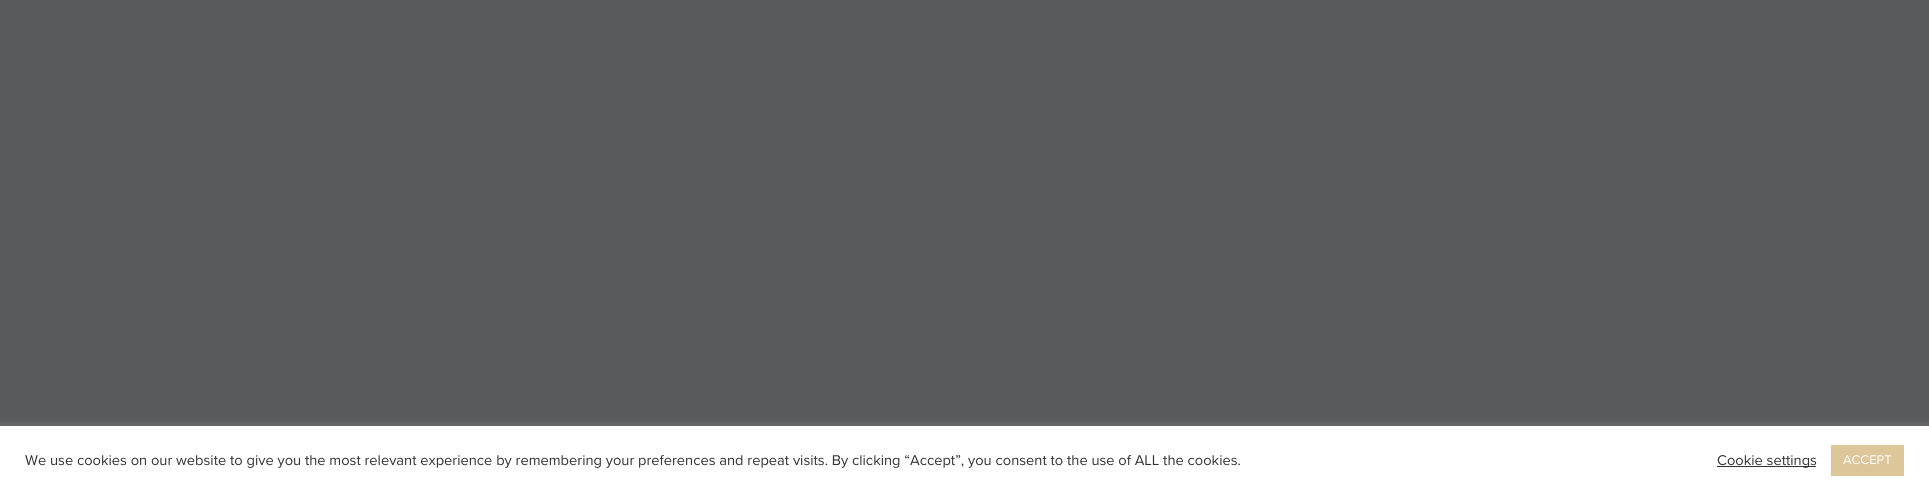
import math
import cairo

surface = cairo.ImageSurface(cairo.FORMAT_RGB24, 1929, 495)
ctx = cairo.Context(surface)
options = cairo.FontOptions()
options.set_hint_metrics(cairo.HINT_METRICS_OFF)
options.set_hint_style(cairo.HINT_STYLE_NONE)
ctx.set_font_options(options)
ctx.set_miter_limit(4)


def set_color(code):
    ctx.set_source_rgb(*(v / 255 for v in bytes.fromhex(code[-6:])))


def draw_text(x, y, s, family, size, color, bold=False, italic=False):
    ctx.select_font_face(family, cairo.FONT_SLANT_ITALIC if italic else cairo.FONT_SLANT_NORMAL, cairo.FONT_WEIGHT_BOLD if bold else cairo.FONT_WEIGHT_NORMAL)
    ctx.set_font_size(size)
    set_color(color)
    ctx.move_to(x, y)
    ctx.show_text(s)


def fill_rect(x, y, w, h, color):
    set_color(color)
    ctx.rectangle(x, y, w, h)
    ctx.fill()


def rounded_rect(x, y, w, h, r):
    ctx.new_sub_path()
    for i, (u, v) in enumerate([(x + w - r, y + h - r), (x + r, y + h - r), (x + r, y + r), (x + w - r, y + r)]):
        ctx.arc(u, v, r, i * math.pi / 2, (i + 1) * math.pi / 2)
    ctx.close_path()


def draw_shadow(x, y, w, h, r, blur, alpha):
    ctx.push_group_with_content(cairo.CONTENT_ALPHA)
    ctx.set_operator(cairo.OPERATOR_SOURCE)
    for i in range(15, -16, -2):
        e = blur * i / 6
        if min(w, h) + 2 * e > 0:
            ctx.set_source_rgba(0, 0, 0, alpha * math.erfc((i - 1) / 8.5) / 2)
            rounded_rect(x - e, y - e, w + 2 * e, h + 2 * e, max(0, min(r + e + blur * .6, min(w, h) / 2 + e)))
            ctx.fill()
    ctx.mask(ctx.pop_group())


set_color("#58595b")
ctx.paint()
set_color("#acabab")
draw_shadow(0, 425, 1929, 69, 0, 5, 0.3)
fill_rect(0, 426, 1929, 69, "#ffffff")
draw_text(25, 465, "We use cookies on our website to give you the most relevant experience by remembering your preferences and repeat visits. By clicking “Accept”, you consent to the use of ALL the cookies.", "Proxima Nova", 14.67, "#333333")
fill_rect(1717, 466, 99, 1, "#333333")
draw_text(1717, 465, "Cookie settings", "Proxima Nova", 14.67, "#333333")
fill_rect(1831, 445, 73, 31, "#ddc79a")
draw_text(1843, 464, "ACCEPT", "Proxima Nova", 13, "#ffffff")
surface.write_to_png("output.png")
